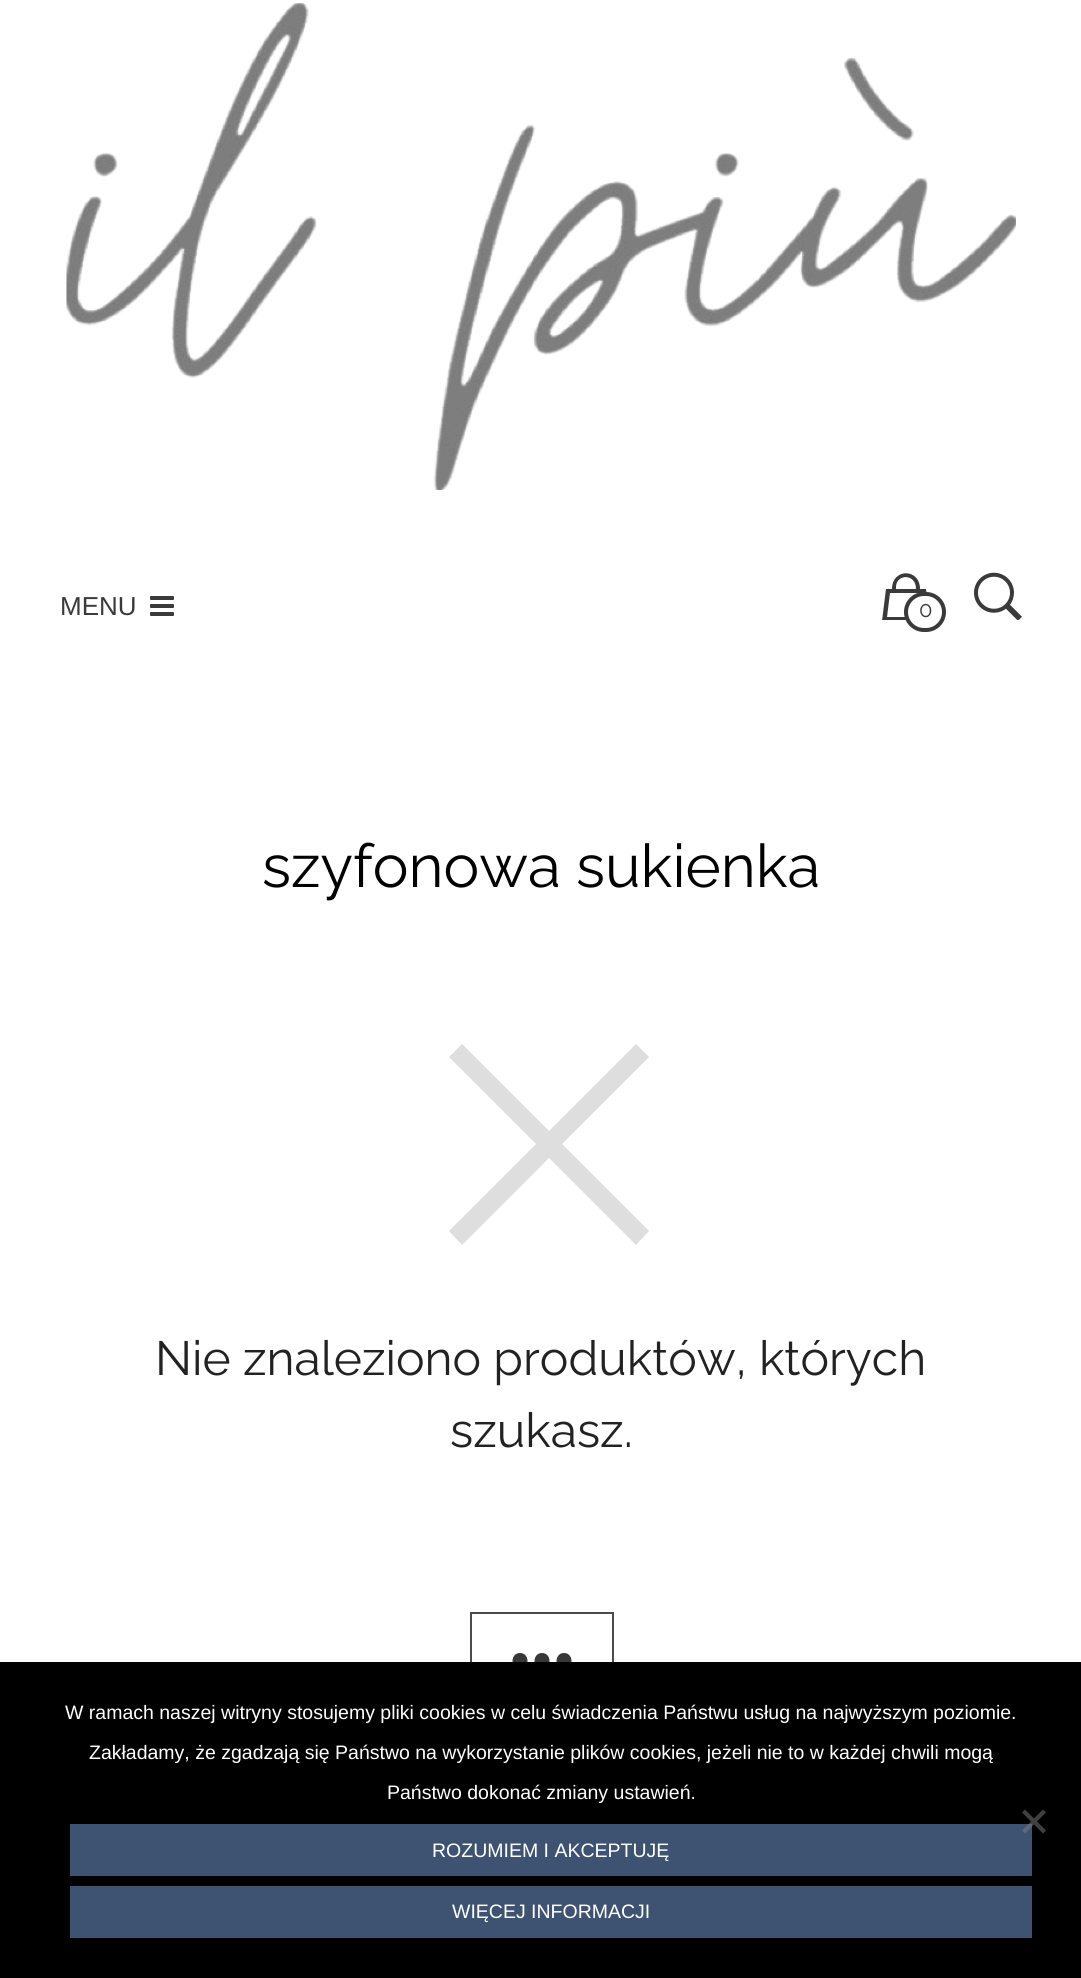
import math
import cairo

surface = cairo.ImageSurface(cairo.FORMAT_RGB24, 1081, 1978)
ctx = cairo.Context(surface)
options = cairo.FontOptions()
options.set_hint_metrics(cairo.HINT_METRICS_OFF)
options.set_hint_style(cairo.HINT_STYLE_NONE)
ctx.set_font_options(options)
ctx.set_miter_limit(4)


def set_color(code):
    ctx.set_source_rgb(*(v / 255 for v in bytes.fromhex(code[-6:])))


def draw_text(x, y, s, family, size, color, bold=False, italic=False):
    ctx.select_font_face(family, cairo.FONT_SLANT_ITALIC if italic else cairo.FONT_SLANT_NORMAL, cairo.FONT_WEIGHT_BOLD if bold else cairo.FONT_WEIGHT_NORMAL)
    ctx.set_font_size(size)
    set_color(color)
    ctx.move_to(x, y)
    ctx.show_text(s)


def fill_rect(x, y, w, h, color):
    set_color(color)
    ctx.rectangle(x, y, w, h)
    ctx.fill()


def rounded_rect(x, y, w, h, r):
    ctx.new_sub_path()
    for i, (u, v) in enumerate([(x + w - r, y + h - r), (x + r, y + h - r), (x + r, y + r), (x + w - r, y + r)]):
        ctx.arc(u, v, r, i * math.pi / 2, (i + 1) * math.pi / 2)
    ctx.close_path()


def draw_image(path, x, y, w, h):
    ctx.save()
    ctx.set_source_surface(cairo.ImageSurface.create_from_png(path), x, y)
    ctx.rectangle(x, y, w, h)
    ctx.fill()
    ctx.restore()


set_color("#ffffff")
ctx.paint()
draw_image("assets/img1.png", 66, 3, 950, 487)
draw_text(60, 615, "MENU", "Liberation Sans", 26, "#3a3a3a")
draw_image("assets/img2.png", 150, 596, 24, 20)
ctx.save()
ctx.rectangle(880, 570, 50, 50)
ctx.clip()
ctx.new_path()
ctx.move_to(926, 589)
ctx.line_to(920, 589)
ctx.curve_to(920, 568, 892, 568, 892, 589)
ctx.line_to(886, 589)
ctx.line_to(882, 621)
ctx.line_to(930, 621)
ctx.close_path()
ctx.move_to(896, 587)
ctx.curve_to(896, 574, 916, 573, 916, 589)
ctx.line_to(896, 589)
ctx.close_path()
ctx.move_to(887, 617)
ctx.line_to(890, 593)
ctx.line_to(922, 593)
ctx.line_to(925, 617)
ctx.close_path()
ctx.fill()
ctx.restore()
set_color("#ffffff")
rounded_rect(906, 594, 38, 36, 18)
ctx.fill_preserve()
set_color("#3a3a3a")
ctx.set_line_width(4)
ctx.stroke()
draw_text(919, 617, "0", "Raleway", 22, "#3a3a3a")
draw_image("assets/img3.png", 974, 572, 48, 48)
draw_text(262, 887, "szyfonowa sukienka", "Raleway", 60, "#000000")
set_color("#dededf")
ctx.new_path()
ctx.move_to(649, 1057)
ctx.line_to(636, 1044)
ctx.line_to(549, 1131)
ctx.line_to(462, 1044)
ctx.line_to(449, 1057)
ctx.line_to(536, 1144)
ctx.line_to(449, 1231)
ctx.line_to(462, 1245)
ctx.line_to(549, 1158)
ctx.line_to(636, 1245)
ctx.line_to(649, 1231)
ctx.line_to(562, 1144)
ctx.close_path()
ctx.fill()
draw_text(155, 1375, "Nie znaleziono produktów, których", "Raleway", 48, "#222222")
draw_text(450, 1447, "szukasz.", "Raleway", 48, "#222222")
ctx.rectangle(471, 1613, 142, 98)
set_color("#4b4b4c")
ctx.set_line_width(2)
ctx.stroke()
set_color("#383838")
ctx.new_path()
ctx.move_to(520, 1653)
ctx.curve_to(510, 1653, 510, 1669, 520, 1669)
ctx.curve_to(530, 1669, 530, 1653, 520, 1653)
ctx.close_path()
ctx.move_to(542, 1653)
ctx.curve_to(532, 1653, 532, 1669, 542, 1669)
ctx.curve_to(552, 1669, 552, 1653, 542, 1653)
ctx.close_path()
ctx.move_to(564, 1653)
ctx.curve_to(554, 1653, 554, 1669, 564, 1669)
ctx.curve_to(574, 1669, 574, 1653, 564, 1653)
ctx.close_path()
ctx.fill()
fill_rect(0, 1662, 1081, 316, "#000000")
draw_text(65, 1719, "W ramach naszej witryny stosujemy pliki cookies w celu świadczenia Państwu usług na najwyższym poziomie.", "Liberation Sans", 19.5, "#ffffff")
draw_text(89, 1759, "Zakładamy, że zgadzają się Państwo na wykorzystanie plików cookies, jeżeli nie to w każdej chwili mogą", "Liberation Sans", 19.5, "#ffffff")
draw_text(387, 1799, "Państwo dokonać zmiany ustawień.", "Liberation Sans", 19.5, "#ffffff")
fill_rect(70, 1824, 962, 52, "#3e5372")
ctx.set_source_rgba(0.502, 0.502, 0.502, 0.5)
ctx.new_path()
ctx.move_to(1043, 1809.5)
ctx.line_to(1046, 1812.5)
ctx.line_to(1025, 1833.5)
ctx.line_to(1022, 1830.5)
ctx.close_path()
ctx.fill()
set_color("#404040")
ctx.new_path()
ctx.move_to(1022, 1812.5)
ctx.line_to(1025, 1809.5)
ctx.line_to(1046, 1830.5)
ctx.line_to(1043, 1833.5)
ctx.close_path()
ctx.fill()
draw_text(432, 1857, "ROZUMIEM I AKCEPTUJĘ", "Liberation Sans", 19.5, "#ffffff")
fill_rect(70, 1886, 962, 52, "#3e5372")
draw_text(452, 1918, "WIĘCEJ INFORMACJI", "Liberation Sans", 19.5, "#ffffff")
surface.write_to_png("output.png")
